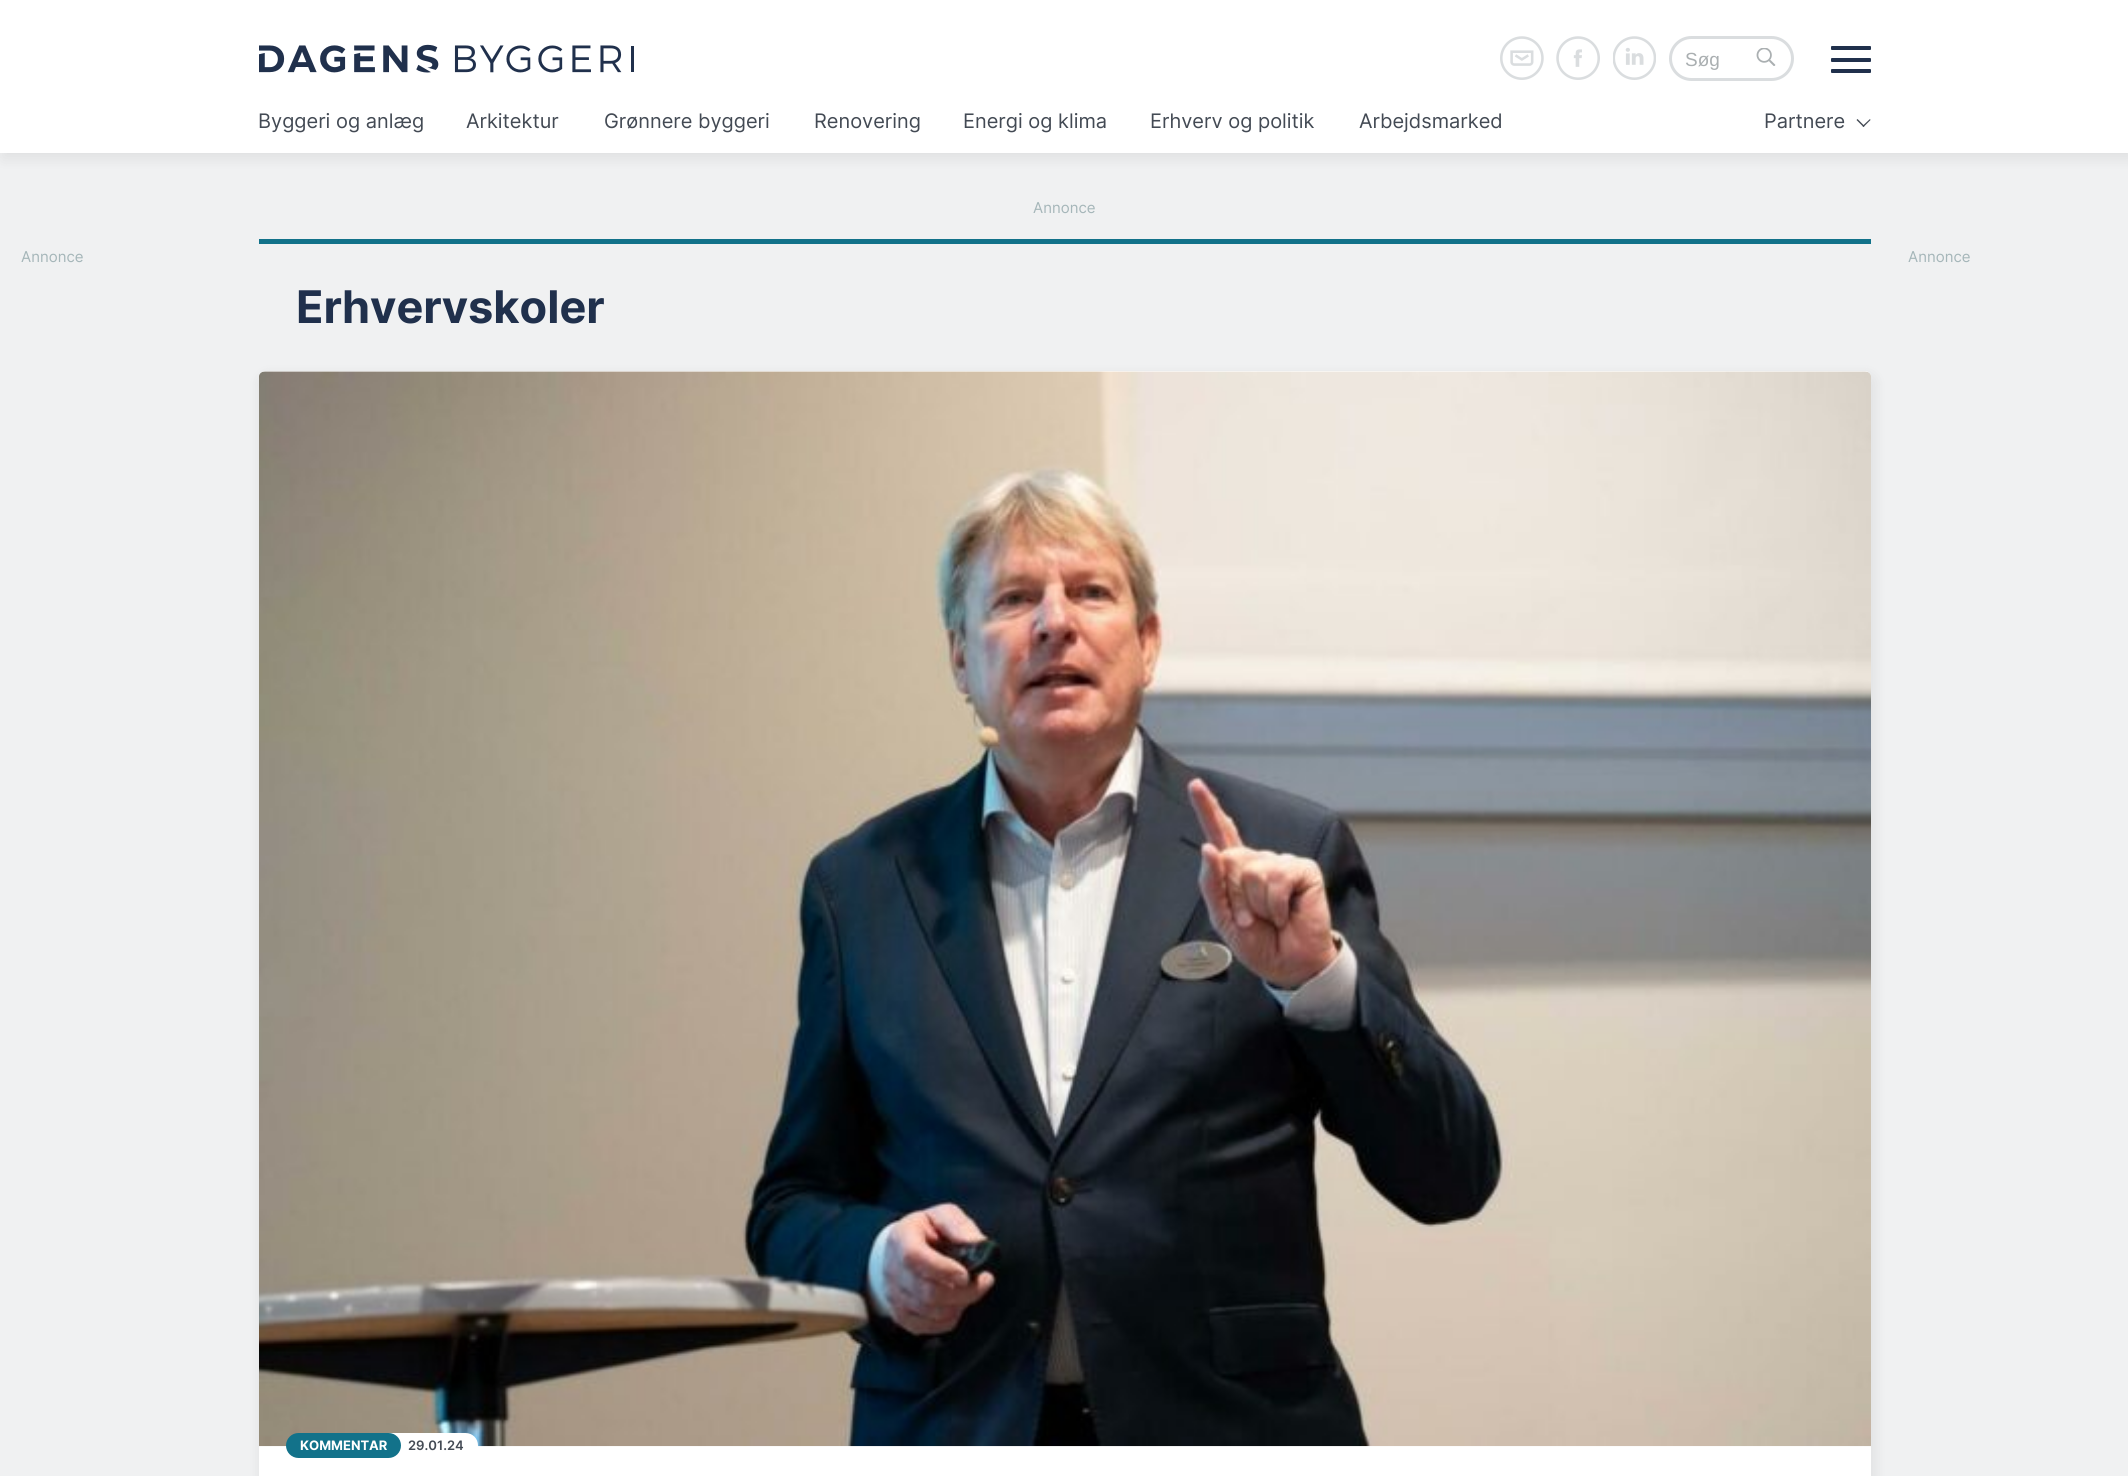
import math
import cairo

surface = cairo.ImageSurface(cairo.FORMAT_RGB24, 2128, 1476)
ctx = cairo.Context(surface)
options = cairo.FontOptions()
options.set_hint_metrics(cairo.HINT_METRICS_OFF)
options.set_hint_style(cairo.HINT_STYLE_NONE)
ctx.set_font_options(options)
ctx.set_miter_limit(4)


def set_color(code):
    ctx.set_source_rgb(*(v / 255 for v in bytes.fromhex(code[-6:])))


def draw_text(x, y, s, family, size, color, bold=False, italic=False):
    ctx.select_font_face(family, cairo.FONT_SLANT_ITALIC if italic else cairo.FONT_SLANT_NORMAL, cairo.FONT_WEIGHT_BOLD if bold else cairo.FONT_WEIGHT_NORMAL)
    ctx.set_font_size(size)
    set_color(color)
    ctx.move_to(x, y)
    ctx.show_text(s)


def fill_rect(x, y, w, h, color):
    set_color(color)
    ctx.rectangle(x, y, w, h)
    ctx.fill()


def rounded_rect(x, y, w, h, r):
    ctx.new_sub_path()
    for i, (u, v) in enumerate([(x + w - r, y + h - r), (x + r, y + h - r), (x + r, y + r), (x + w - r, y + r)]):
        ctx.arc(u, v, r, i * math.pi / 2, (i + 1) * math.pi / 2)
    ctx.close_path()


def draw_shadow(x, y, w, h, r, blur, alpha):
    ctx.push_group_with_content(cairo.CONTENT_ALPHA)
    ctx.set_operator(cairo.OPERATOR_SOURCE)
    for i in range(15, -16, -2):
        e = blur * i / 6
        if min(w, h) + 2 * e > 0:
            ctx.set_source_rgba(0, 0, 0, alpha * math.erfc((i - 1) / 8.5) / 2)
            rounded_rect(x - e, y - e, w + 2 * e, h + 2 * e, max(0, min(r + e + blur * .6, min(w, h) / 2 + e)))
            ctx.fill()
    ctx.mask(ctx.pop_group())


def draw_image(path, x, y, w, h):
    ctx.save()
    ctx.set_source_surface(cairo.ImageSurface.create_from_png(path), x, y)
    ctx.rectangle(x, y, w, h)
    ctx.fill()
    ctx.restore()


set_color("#f0f1f2")
ctx.paint()
set_color("#000000")
draw_shadow(3, 105, 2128, 53, 0, 7.5, 0.08)
fill_rect(0, 0, 2128, 153, "#ffffff")
draw_image("assets/img1.png", 259, 44, 375, 29)
draw_image("assets/img2.png", 1500, 36, 44, 44)
draw_image("assets/img3.png", 1556, 36, 44, 44)
draw_image("assets/img4.png", 1613, 36, 43, 44)
rounded_rect(1670.5, 37.5, 122, 42, 21)
set_color("#dadddf")
ctx.set_line_width(3)
ctx.stroke()
draw_text(1685, 66, "Søg", "Liberation Sans", 19, "#aaafb1")
draw_image("assets/img5.png", 1756, 48, 20, 18)
set_color("#20304c")
rounded_rect(1831, 58, 40, 4, 1)
ctx.fill()
rounded_rect(1831, 46, 40, 4, 1)
ctx.fill()
rounded_rect(1831, 69, 40, 4, 1)
ctx.fill()
draw_text(258, 128, "Byggeri og anlæg", "Inter", 20, "#434a54")
draw_text(466, 128, "Arkitektur", "Inter", 20, "#434a54")
draw_text(604, 128, "Grønnere byggeri", "Inter", 20, "#434a54")
draw_text(814, 128, "Renovering", "Inter", 20, "#434a54")
draw_text(963, 128, "Energi og klima", "Inter", 20, "#434a54")
draw_text(1150, 128, "Erhverv og politik", "Inter", 20, "#434a54")
draw_text(1359, 128, "Arbejdsmarked", "Inter", 20, "#434a54")
draw_text(1764, 128, "Partnere", "Inter", 20, "#434a54")
ctx.new_path()
ctx.move_to(1870.5, 120)
ctx.line_to(1863.5, 127)
ctx.line_to(1862.5, 126)
ctx.line_to(1870, 119)
ctx.close_path()
ctx.fill()
ctx.new_path()
ctx.move_to(1864.5, 126)
ctx.line_to(1863.5, 127)
ctx.line_to(1856.5, 120)
ctx.line_to(1857.5, 119)
ctx.close_path()
ctx.fill()
draw_text(1033, 213, "Annonce", "Inter", 15, "#a5b6b9")
draw_text(21, 262, "Annonce", "Inter", 15, "#a5b6b9")
draw_text(1908, 262, "Annonce", "Inter", 15, "#a5b6b9")
fill_rect(259, 239, 1612, 5, "#12728a")
draw_text(296, 323, "Erhvervskoler", "Inter", 45, "#20304c", bold=True)
set_color("#000000")
draw_shadow(261, 376, 1613, 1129, 6, 7.5, 0.08)
set_color("#ffffff")
rounded_rect(259, 371, 1612, 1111, 6)
ctx.fill()
draw_image("assets/img6.png", 259, 371, 1612, 1076)
ctx.new_path()
ctx.move_to(380, 1433)
ctx.line_to(465.5, 1433)
ctx.curve_to(472.5, 1433, 478, 1438.5, 478, 1445.5)
ctx.curve_to(478, 1452.5, 472.5, 1458, 465.5, 1458)
ctx.line_to(380, 1458)
ctx.close_path()
ctx.fill()
set_color("#12728a")
rounded_rect(286, 1433, 115, 25, 12.5)
ctx.fill()
draw_text(300, 1450, "KOMMENTAR", "Inter", 13, "#ffffff", bold=True)
draw_text(408, 1450, "29.01.24", "Inter SemiBold", 13, "#434a54")
surface.write_to_png("output.png")
